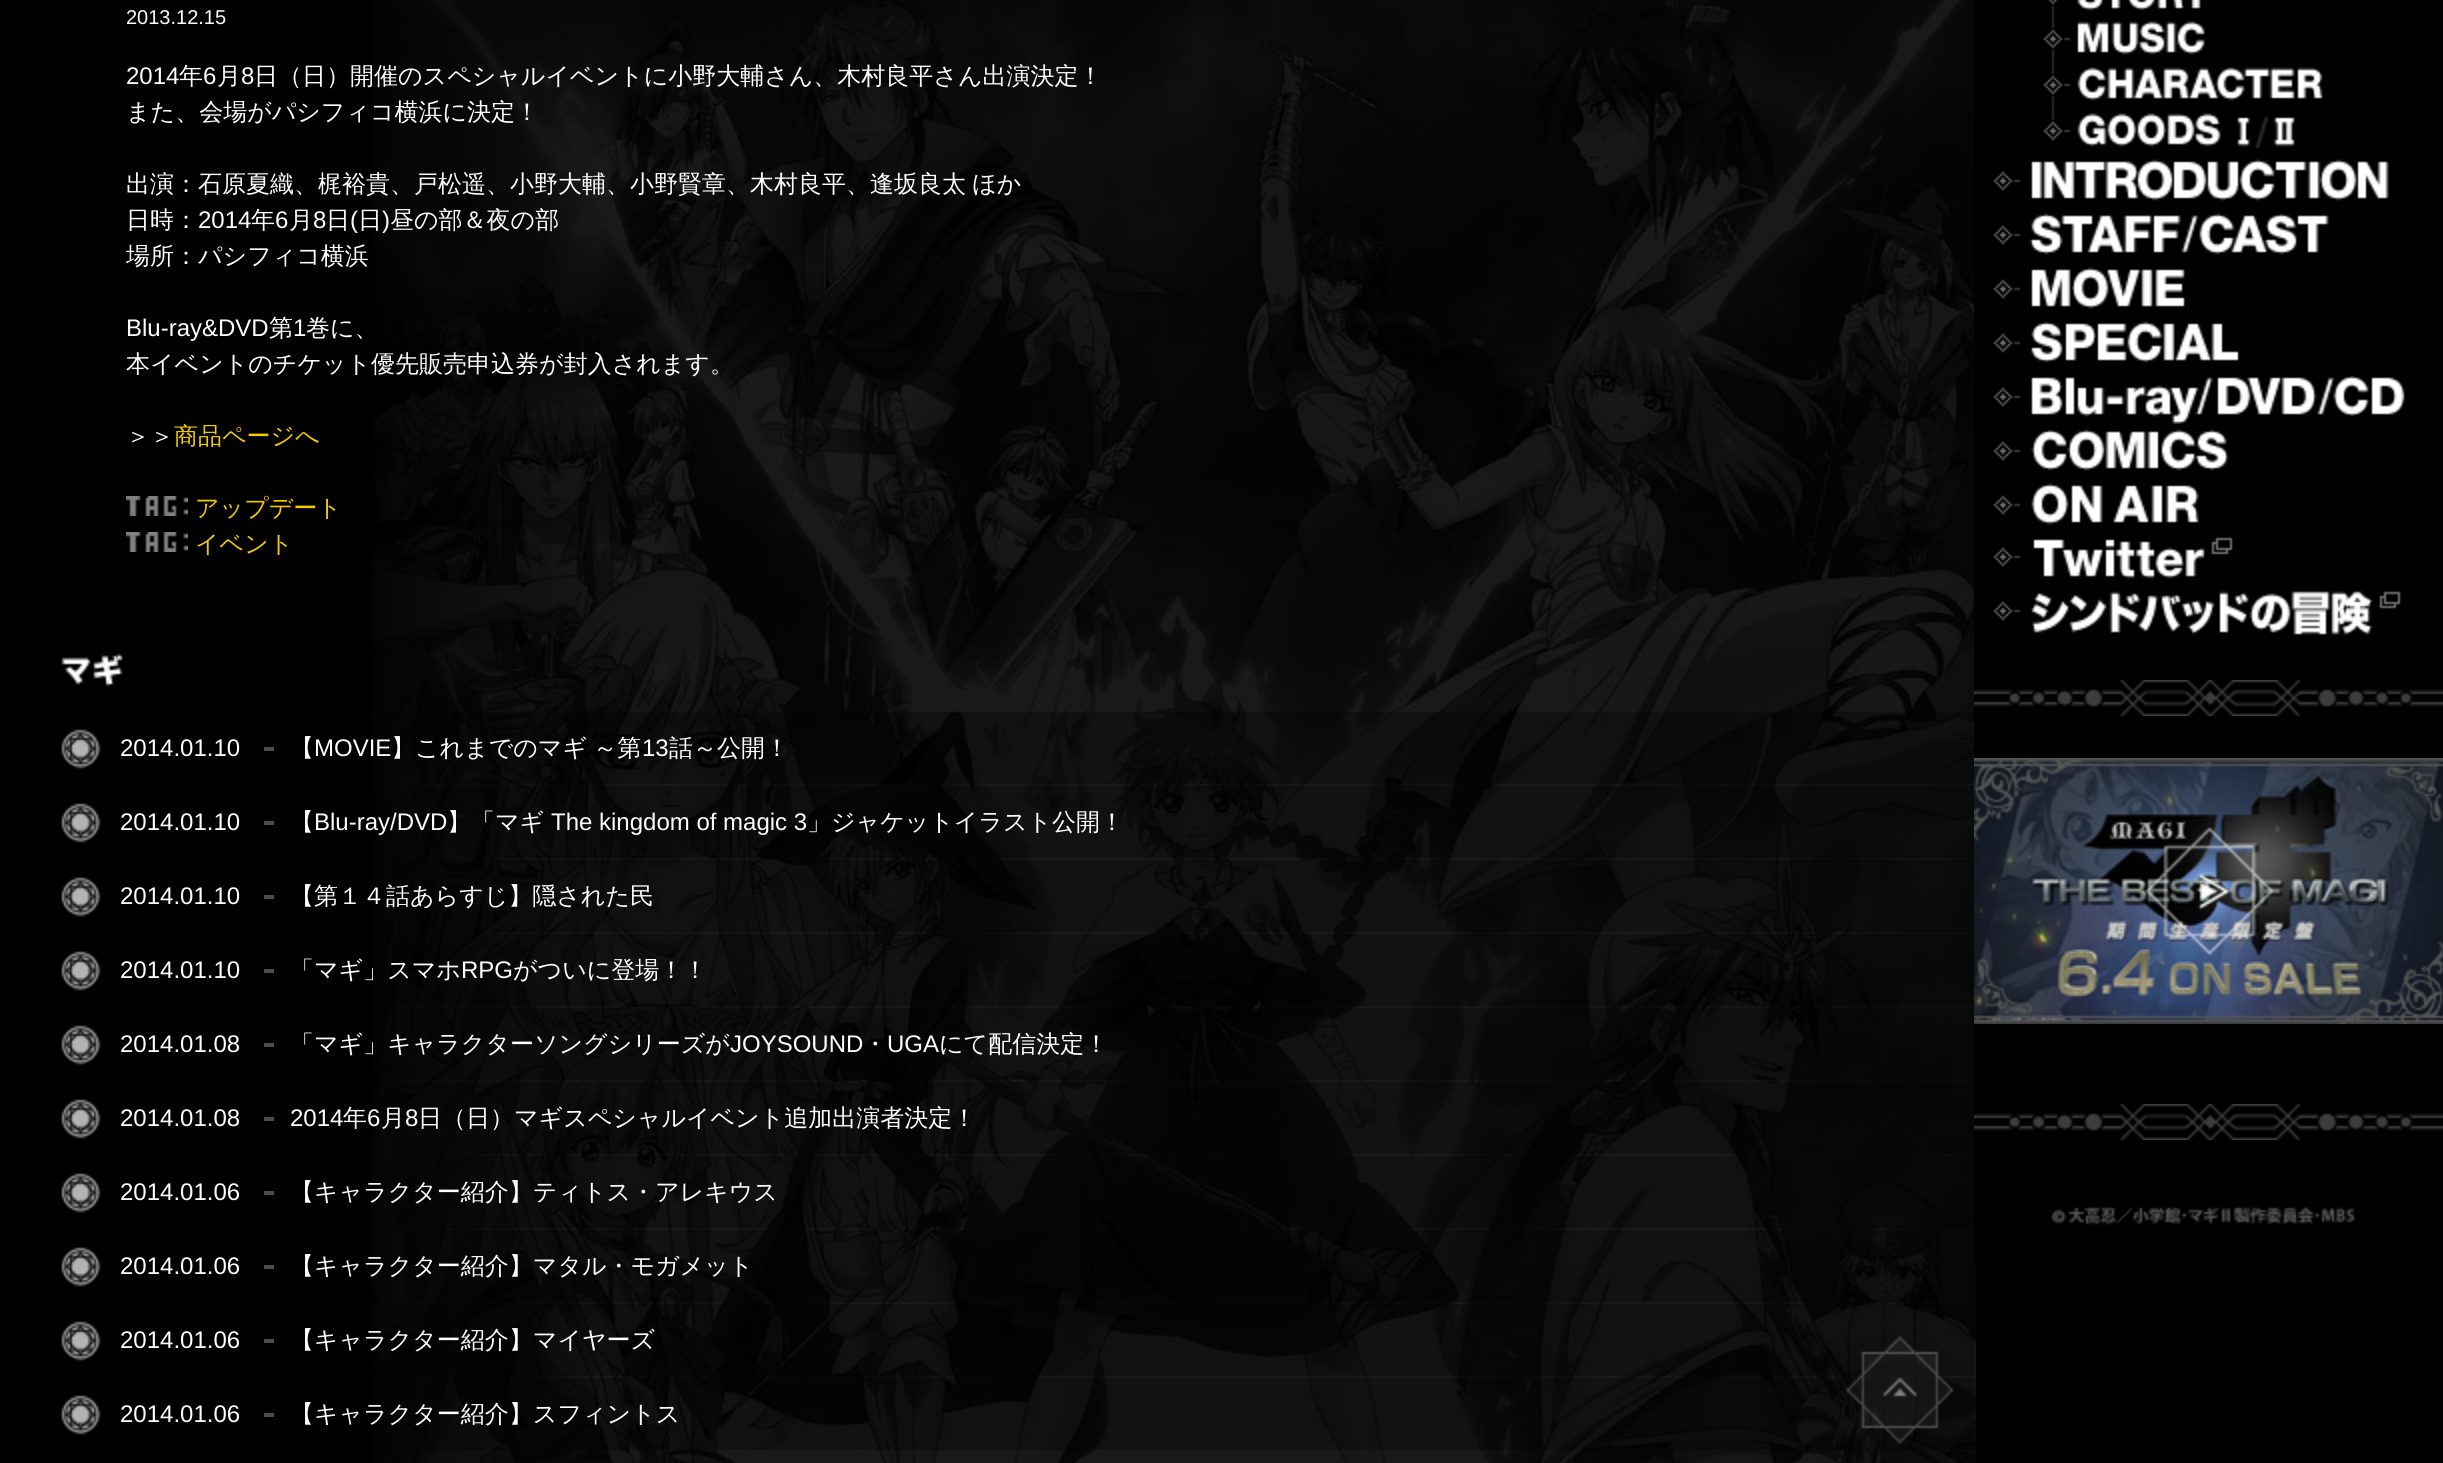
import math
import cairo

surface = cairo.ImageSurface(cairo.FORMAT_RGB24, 2443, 1463)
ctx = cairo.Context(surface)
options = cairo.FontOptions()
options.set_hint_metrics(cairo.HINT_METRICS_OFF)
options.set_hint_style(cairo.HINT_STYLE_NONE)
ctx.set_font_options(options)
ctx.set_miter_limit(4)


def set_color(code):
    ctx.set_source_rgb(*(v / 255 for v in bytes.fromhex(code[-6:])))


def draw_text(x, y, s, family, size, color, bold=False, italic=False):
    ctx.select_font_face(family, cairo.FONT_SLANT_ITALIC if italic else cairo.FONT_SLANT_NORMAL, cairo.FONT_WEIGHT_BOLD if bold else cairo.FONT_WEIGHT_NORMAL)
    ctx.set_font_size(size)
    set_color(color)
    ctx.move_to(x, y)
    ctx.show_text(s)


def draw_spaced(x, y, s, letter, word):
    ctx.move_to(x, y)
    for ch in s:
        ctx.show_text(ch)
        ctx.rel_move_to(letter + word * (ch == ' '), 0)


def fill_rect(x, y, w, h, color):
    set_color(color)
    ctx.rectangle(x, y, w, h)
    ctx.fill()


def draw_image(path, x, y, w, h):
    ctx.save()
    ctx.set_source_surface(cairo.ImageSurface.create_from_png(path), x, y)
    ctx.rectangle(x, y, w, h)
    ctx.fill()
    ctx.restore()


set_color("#000000")
ctx.paint()
draw_image("assets/img1.png", 372, 0, 1604, 1463)
fill_rect(1974, 0, 2, 1262, "#000000")
draw_image("assets/img2.png", 1974, 680, 469, 36)
draw_image("assets/img3.png", 2047, 0, 154, 16)
draw_image("assets/img4.png", 2043, 16, 162, 46)
draw_image("assets/img5.png", 2043, 62, 280, 46)
draw_image("assets/img6.png", 2043, 108, 226, 41)
draw_image("assets/img7.png", 2273, 117, 22, 30)
draw_image("assets/img8.png", 1993, 159, 396, 42)
draw_image("assets/img9.png", 1993, 213, 336, 42)
draw_image("assets/img10.png", 1993, 267, 192, 42)
draw_image("assets/img11.png", 1993, 321, 246, 42)
draw_image("assets/img12.png", 1993, 375, 412, 49)
draw_image("assets/img13.png", 1993, 429, 236, 42)
draw_image("assets/img14.png", 1993, 483, 206, 42)
draw_image("assets/img15.png", 1993, 537, 240, 42)
draw_image("assets/img16.png", 1993, 591, 408, 44)
draw_image("assets/img18.png", 1974, 761, 469, 260)
draw_image("assets/img17.png", 1974, 758, 469, 266)
draw_image("assets/img2.png", 1974, 1104, 469, 36)
draw_image("assets/img19.png", 2051, 1207, 304, 18)
draw_text(126, 24, "2013.12.15", "Liberation Sans", 20, "#ffffff")
draw_text(126, 84, "2014", "Liberation Sans", 24, "#ffffff")
draw_text(179, 84, "年", "WenQuanYi Zen Hei Medium", 24, "#ffffff")
draw_text(203, 84, "6", "Liberation Sans", 24, "#ffffff")
draw_text(217, 84, "月", "WenQuanYi Zen Hei Medium", 24, "#ffffff")
draw_text(241, 84, "8", "Liberation Sans", 24, "#ffffff")
draw_text(254, 84, "日（日）開催のスペシャルイベントに小野大輔さん、木村良平さん出演決定！", "WenQuanYi Zen Hei Medium", 24, "#ffffff")
draw_text(126, 120, "また、会場がパシフィコ横浜に決定！", "WenQuanYi Zen Hei Medium", 24, "#ffffff")
draw_spaced(126, 192, "出演：石原夏織、梶裕貴、戸松遥、小野大輔、小野賢章、木村良平、逢坂良太 ほか", 0, -1)
draw_text(126, 228, "日時：", "WenQuanYi Zen Hei Medium", 24, "#ffffff")
draw_text(198, 228, "2014", "Liberation Sans", 24, "#ffffff")
draw_text(251, 228, "年", "WenQuanYi Zen Hei Medium", 24, "#ffffff")
draw_text(275, 228, "6", "Liberation Sans", 24, "#ffffff")
draw_text(289, 228, "月", "WenQuanYi Zen Hei Medium", 24, "#ffffff")
draw_text(313, 228, "8", "Liberation Sans", 24, "#ffffff")
draw_text(326, 228, "日", "WenQuanYi Zen Hei Medium", 24, "#ffffff")
draw_text(350, 228, "(", "Liberation Sans", 24, "#ffffff")
draw_text(358, 228, "日", "WenQuanYi Zen Hei Medium", 24, "#ffffff")
draw_text(382, 228, ")", "Liberation Sans", 24, "#ffffff")
draw_text(390, 228, "昼の部＆夜の部", "WenQuanYi Zen Hei Medium", 24, "#ffffff")
draw_text(126, 264, "場所：パシフィコ横浜", "WenQuanYi Zen Hei Medium", 24, "#ffffff")
draw_text(126, 336, "Blu-ray&DVD", "Liberation Sans", 24, "#ffffff")
draw_text(269, 336, "第", "WenQuanYi Zen Hei Medium", 24, "#ffffff")
draw_text(293, 336, "1", "Liberation Sans", 24, "#ffffff")
draw_text(306, 336, "巻に、", "WenQuanYi Zen Hei Medium", 24, "#ffffff")
draw_text(126, 372, "本イベントのチケット優先販売申込券が封入されます。", "WenQuanYi Zen Hei Medium", 24, "#ffffff")
draw_text(126, 444, "＞＞", "WenQuanYi Zen Hei Medium", 24, "#ffffff")
draw_text(174, 444, "商品ページへ", "WenQuanYi Zen Hei Medium", 24, "#f3ca00")
draw_image("assets/img20.png", 126, 496, 62, 20)
draw_text(195, 516, "アップデート", "WenQuanYi Zen Hei Medium", 24, "#f3ca00")
draw_image("assets/img20.png", 126, 532, 62, 20)
draw_text(195, 552, "イベント", "WenQuanYi Zen Hei Medium", 24, "#f3ca00")
draw_image("assets/img21.png", 61, 653, 62, 34)
ctx.set_source_rgba(0, 0, 0, 0.3)
ctx.rectangle(436, 712, 1538, 72)
ctx.fill()
draw_image("assets/img22.png", 61, 729, 40, 40)
fill_rect(264, 747, 10, 4, "#4c4c4c")
draw_text(120, 756, "2014.01.10", "Liberation Sans", 24, "#ffffff")
draw_text(290, 756, "【", "WenQuanYi Zen Hei Medium", 24, "#ffffff")
draw_text(314, 756, "MOVIE", "Liberation Sans", 24, "#ffffff")
ctx.select_font_face("WenQuanYi Zen Hei Medium")
draw_spaced(391, 756, "】これまでのマギ ～第", 0, -1)
draw_text(642, 756, "13", "Liberation Sans", 24, "#ffffff")
draw_text(669, 756, "話～公開！", "WenQuanYi Zen Hei Medium", 24, "#ffffff")
ctx.set_source_rgba(0, 0, 0, 0.3)
ctx.rectangle(413, 786, 1561, 72)
ctx.fill()
draw_image("assets/img22.png", 61, 803, 40, 40)
fill_rect(264, 821, 10, 4, "#4c4c4c")
draw_text(120, 830, "2014.01.10", "Liberation Sans", 24, "#ffffff")
draw_text(290, 830, "【", "WenQuanYi Zen Hei Medium", 24, "#ffffff")
draw_text(314, 830, "Blu-ray/DVD", "Liberation Sans", 24, "#ffffff")
draw_text(447, 830, "】「マギ", "WenQuanYi Zen Hei Medium", 24, "#ffffff")
draw_text(551, 830, "The kingdom of magic 3", "Liberation Sans", 24, "#ffffff")
draw_text(807, 830, "」ジャケットイラスト公開！", "WenQuanYi Zen Hei Medium", 24, "#ffffff")
ctx.set_source_rgba(0, 0, 0, 0.3)
ctx.rectangle(397, 860, 1577, 72)
ctx.fill()
draw_image("assets/img22.png", 61, 877, 40, 40)
fill_rect(264, 895, 10, 4, "#4c4c4c")
draw_text(120, 904, "2014.01.10", "Liberation Sans", 24, "#ffffff")
draw_text(290, 904, "【第１４話あらすじ】隠された民", "WenQuanYi Zen Hei Medium", 24, "#ffffff")
ctx.set_source_rgba(0, 0, 0, 0.3)
ctx.rectangle(392, 934, 1582, 72)
ctx.fill()
draw_image("assets/img22.png", 61, 951, 40, 40)
fill_rect(264, 969, 10, 4, "#4c4c4c")
draw_text(120, 978, "2014.01.10", "Liberation Sans", 24, "#ffffff")
draw_text(290, 978, "「マギ」スマホ", "WenQuanYi Zen Hei Medium", 24, "#ffffff")
draw_text(461, 978, "RPG", "Liberation Sans", 24, "#ffffff")
draw_text(513, 978, "がついに登場！！", "WenQuanYi Zen Hei Medium", 24, "#ffffff")
ctx.set_source_rgba(0, 0, 0, 0.3)
ctx.rectangle(402, 1008, 1572, 72)
ctx.fill()
draw_image("assets/img22.png", 61, 1025, 40, 40)
fill_rect(264, 1043, 10, 4, "#4c4c4c")
draw_text(120, 1052, "2014.01.08", "Liberation Sans", 24, "#ffffff")
draw_text(290, 1052, "「マギ」キャラクターソングシリーズが", "WenQuanYi Zen Hei Medium", 24, "#ffffff")
draw_text(730, 1052, "JOYSOUND", "Liberation Sans", 24, "#ffffff")
draw_text(863, 1052, "・", "WenQuanYi Zen Hei Medium", 24, "#ffffff")
draw_text(887, 1052, "UGA", "Liberation Sans", 24, "#ffffff")
draw_text(939, 1052, "にて配信決定！", "WenQuanYi Zen Hei Medium", 24, "#ffffff")
ctx.set_source_rgba(0, 0, 0, 0.3)
ctx.rectangle(393, 1082, 1581, 72)
ctx.fill()
draw_image("assets/img22.png", 61, 1099, 40, 40)
fill_rect(264, 1117, 10, 4, "#4c4c4c")
draw_text(120, 1126, "2014.01.08", "Liberation Sans", 24, "#ffffff")
draw_text(290, 1126, "2014", "Liberation Sans", 24, "#ffffff")
draw_text(343, 1126, "年", "WenQuanYi Zen Hei Medium", 24, "#ffffff")
draw_text(367, 1126, "6", "Liberation Sans", 24, "#ffffff")
draw_text(381, 1126, "月", "WenQuanYi Zen Hei Medium", 24, "#ffffff")
draw_text(405, 1126, "8", "Liberation Sans", 24, "#ffffff")
draw_text(418, 1126, "日（日）マギスペシャルイベント追加出演者決定！", "WenQuanYi Zen Hei Medium", 24, "#ffffff")
ctx.set_source_rgba(0, 0, 0, 0.3)
ctx.rectangle(393, 1156, 1581, 72)
ctx.fill()
draw_image("assets/img22.png", 61, 1173, 40, 40)
fill_rect(264, 1191, 10, 4, "#4c4c4c")
draw_text(120, 1200, "2014.01.06", "Liberation Sans", 24, "#ffffff")
draw_text(290, 1200, "【キャラクター紹介】ティトス・アレキウス", "WenQuanYi Zen Hei Medium", 24, "#ffffff")
ctx.set_source_rgba(0, 0, 0, 0.3)
ctx.rectangle(404, 1230, 1537, 72)
ctx.fill()
draw_image("assets/img22.png", 61, 1247, 40, 40)
fill_rect(264, 1265, 10, 4, "#4c4c4c")
draw_text(120, 1274, "2014.01.06", "Liberation Sans", 24, "#ffffff")
draw_text(290, 1274, "【キャラクター紹介】マタル・モガメット", "WenQuanYi Zen Hei Medium", 24, "#ffffff")
ctx.set_source_rgba(0, 0, 0, 0.3)
ctx.rectangle(395, 1304, 1579, 72)
ctx.fill()
draw_image("assets/img22.png", 61, 1321, 40, 40)
fill_rect(264, 1339, 10, 4, "#4c4c4c")
draw_text(120, 1348, "2014.01.06", "Liberation Sans", 24, "#ffffff")
draw_text(290, 1348, "【キャラクター紹介】マイヤーズ", "WenQuanYi Zen Hei Medium", 24, "#ffffff")
ctx.set_source_rgba(0, 0, 0, 0.3)
ctx.rectangle(424, 1378, 1550, 72)
ctx.fill()
draw_image("assets/img22.png", 61, 1395, 40, 40)
fill_rect(264, 1413, 10, 4, "#4c4c4c")
draw_text(120, 1422, "2014.01.06", "Liberation Sans", 24, "#ffffff")
draw_text(290, 1422, "【キャラクター紹介】スフィントス", "WenQuanYi Zen Hei Medium", 24, "#ffffff")
draw_image("assets/img23.png", 1846, 1336, 108, 108)
surface.write_to_png("output.png")
